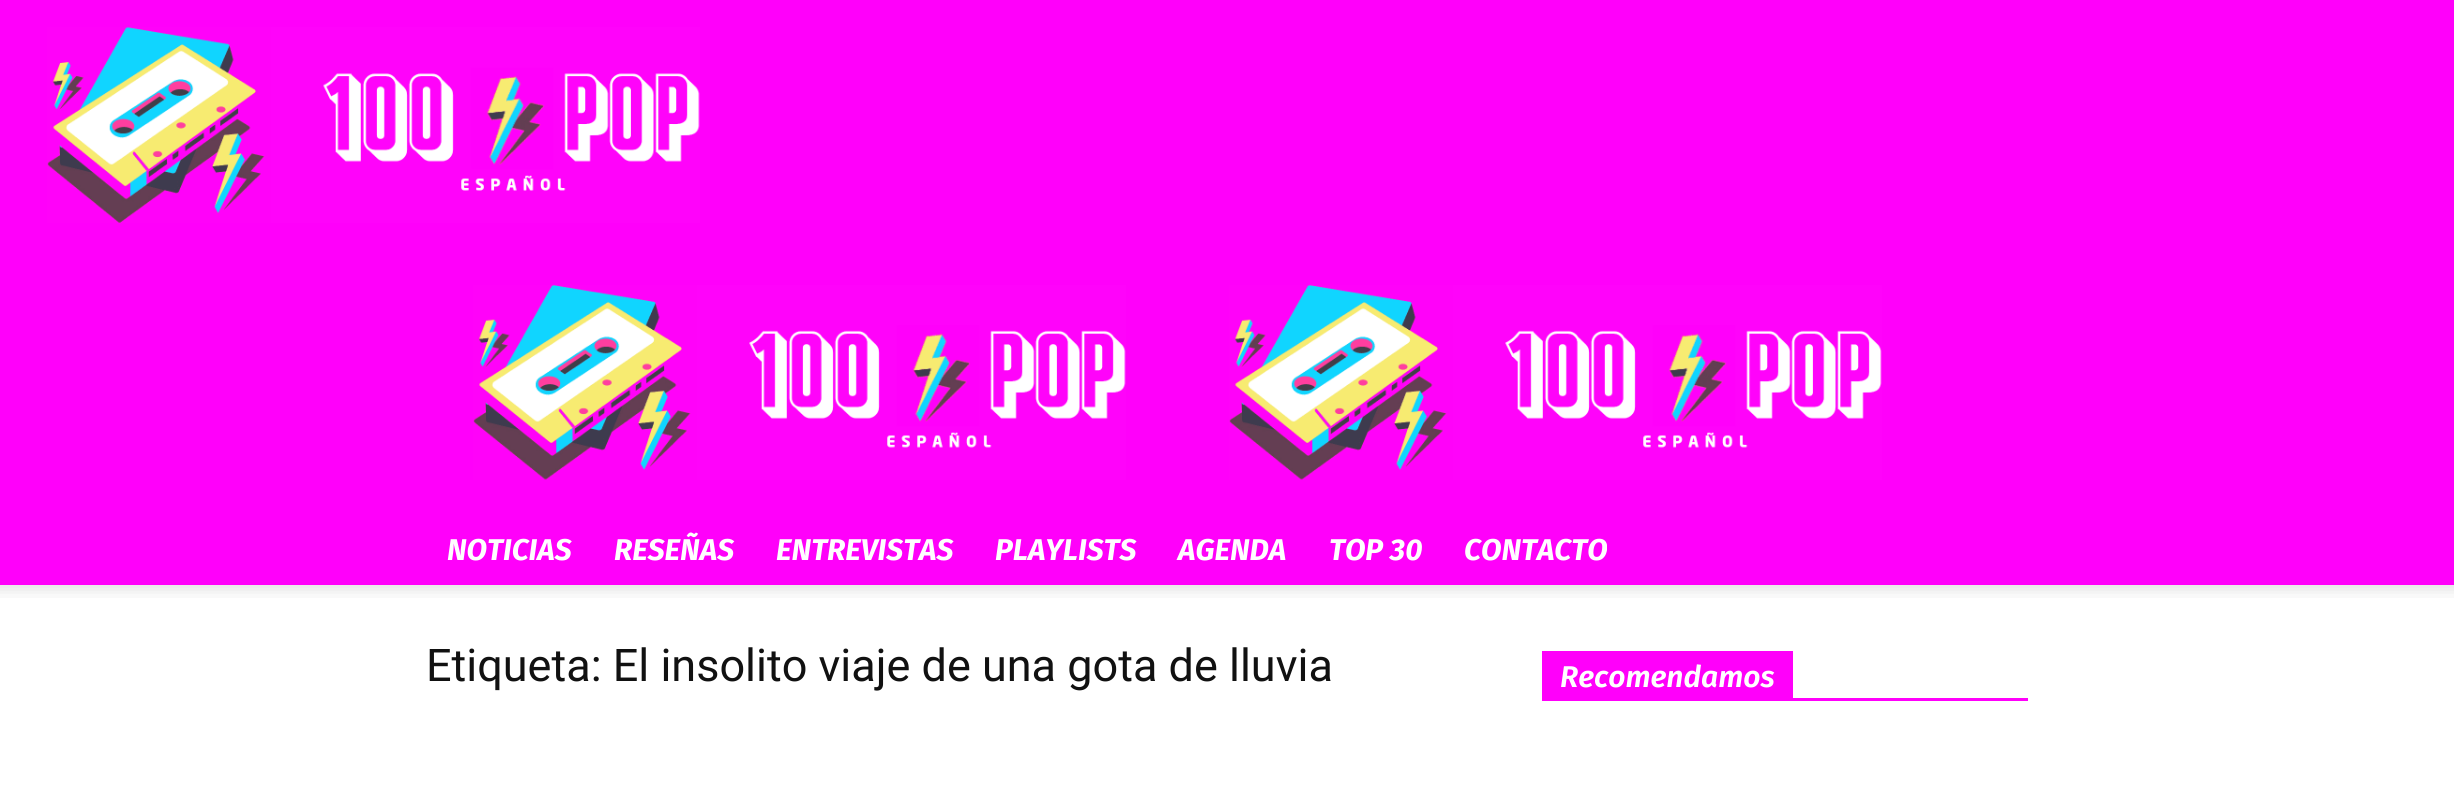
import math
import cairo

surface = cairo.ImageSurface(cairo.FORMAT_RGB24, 2454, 790)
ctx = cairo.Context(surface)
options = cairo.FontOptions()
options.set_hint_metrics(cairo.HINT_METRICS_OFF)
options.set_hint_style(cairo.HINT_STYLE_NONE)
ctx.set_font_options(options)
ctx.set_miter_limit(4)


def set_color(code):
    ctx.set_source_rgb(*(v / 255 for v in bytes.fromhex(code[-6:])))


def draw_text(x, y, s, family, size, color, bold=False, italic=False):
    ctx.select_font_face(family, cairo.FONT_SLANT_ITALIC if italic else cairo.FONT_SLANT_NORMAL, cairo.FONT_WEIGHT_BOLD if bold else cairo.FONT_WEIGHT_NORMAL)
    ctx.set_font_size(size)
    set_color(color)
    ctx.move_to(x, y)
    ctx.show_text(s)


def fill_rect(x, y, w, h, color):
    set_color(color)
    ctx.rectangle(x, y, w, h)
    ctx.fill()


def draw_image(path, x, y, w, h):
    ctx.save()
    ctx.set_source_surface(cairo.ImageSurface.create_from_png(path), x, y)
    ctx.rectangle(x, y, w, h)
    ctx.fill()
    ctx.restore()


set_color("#ffffff")
ctx.paint()
fill_rect(0, 0, 2454, 585, "#ff00fa")
draw_image("assets/img1.png", 47, 27, 653, 196)
draw_image("assets/img2.png", 473, 285, 653, 195)
draw_image("assets/img3.png", 1229, 285, 653, 195)
draw_text(447, 560, "NOTICIAS", "Fira Sans", 30, "#ffffff", bold=True, italic=True)
draw_text(614, 560, "RESEÑAS", "Fira Sans", 30, "#ffffff", bold=True, italic=True)
draw_text(776, 560, "ENTREVISTAS", "Fira Sans", 30, "#ffffff", bold=True, italic=True)
draw_text(995, 560, "PLAYLISTS", "Fira Sans", 30, "#ffffff", bold=True, italic=True)
draw_text(1178, 560, "AGENDA", "Fira Sans", 30, "#ffffff", bold=True, italic=True)
draw_text(1329, 560, "TOP 30", "Fira Sans", 30, "#ffffff", bold=True, italic=True)
draw_text(1464, 560, "CONTACTO", "Fira Sans", 30, "#ffffff", bold=True, italic=True)
draw_image("assets/img4.png", 0, 585, 2454, 13)
draw_text(426, 681, "Etiqueta: El insolito viaje de una gota de lluvia", "Roboto", 45, "#111111")
fill_rect(1542, 698, 486, 3, "#ff00fa")
fill_rect(1542, 651, 251, 47, "#ff00fa")
draw_text(1560, 687, "Recomendamos", "Fira Sans SemiBold", 30, "#ffffff", italic=True)
surface.write_to_png("output.png")
